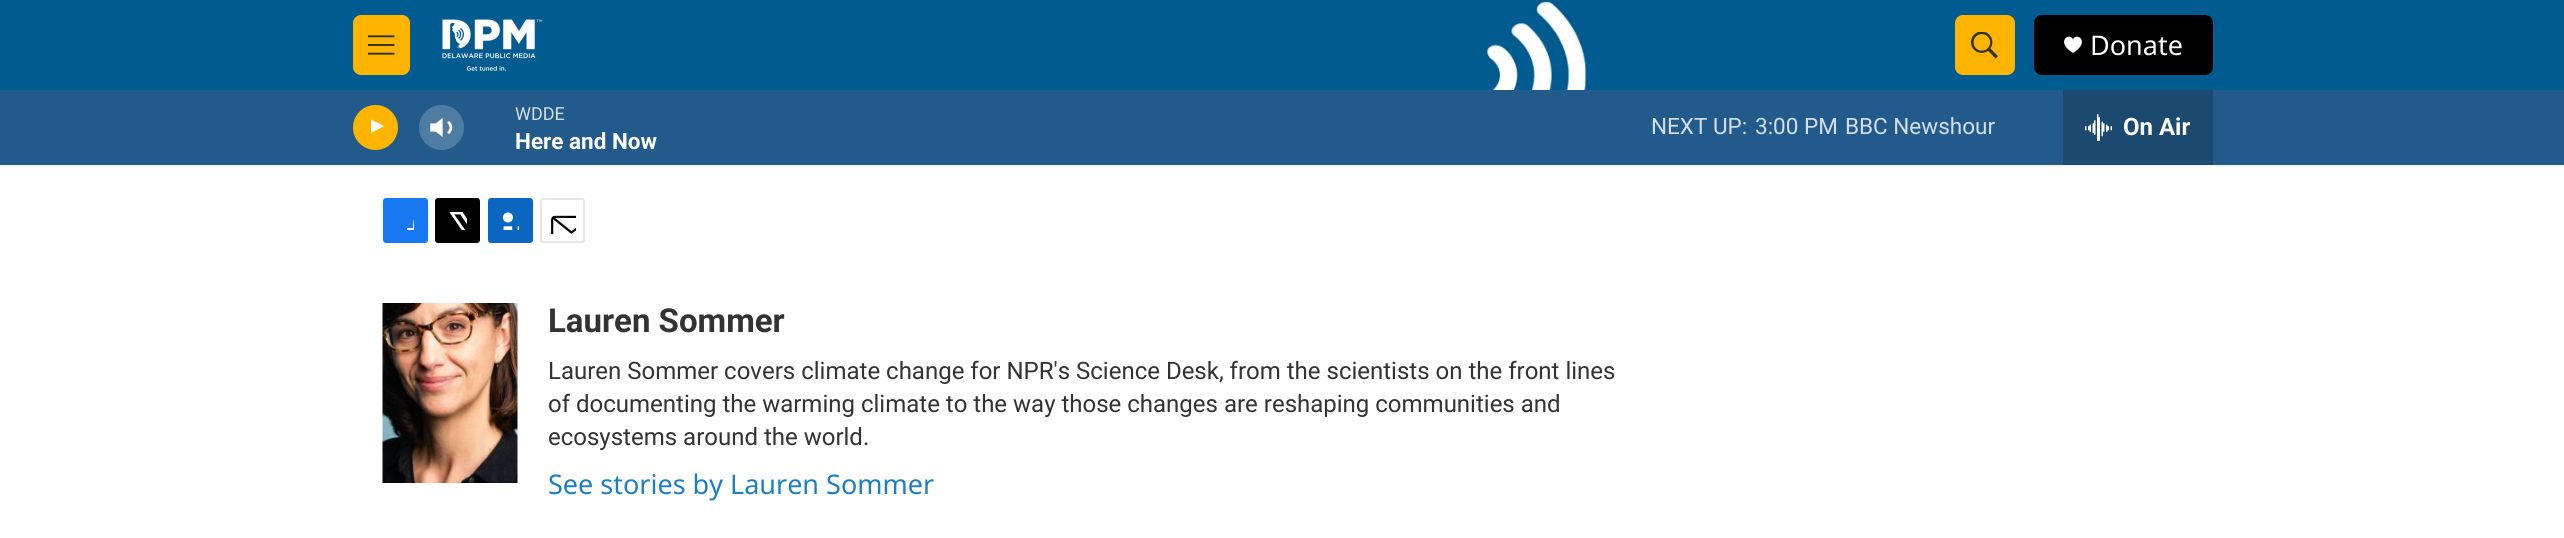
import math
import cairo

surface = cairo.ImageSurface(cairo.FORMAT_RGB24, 2564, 538)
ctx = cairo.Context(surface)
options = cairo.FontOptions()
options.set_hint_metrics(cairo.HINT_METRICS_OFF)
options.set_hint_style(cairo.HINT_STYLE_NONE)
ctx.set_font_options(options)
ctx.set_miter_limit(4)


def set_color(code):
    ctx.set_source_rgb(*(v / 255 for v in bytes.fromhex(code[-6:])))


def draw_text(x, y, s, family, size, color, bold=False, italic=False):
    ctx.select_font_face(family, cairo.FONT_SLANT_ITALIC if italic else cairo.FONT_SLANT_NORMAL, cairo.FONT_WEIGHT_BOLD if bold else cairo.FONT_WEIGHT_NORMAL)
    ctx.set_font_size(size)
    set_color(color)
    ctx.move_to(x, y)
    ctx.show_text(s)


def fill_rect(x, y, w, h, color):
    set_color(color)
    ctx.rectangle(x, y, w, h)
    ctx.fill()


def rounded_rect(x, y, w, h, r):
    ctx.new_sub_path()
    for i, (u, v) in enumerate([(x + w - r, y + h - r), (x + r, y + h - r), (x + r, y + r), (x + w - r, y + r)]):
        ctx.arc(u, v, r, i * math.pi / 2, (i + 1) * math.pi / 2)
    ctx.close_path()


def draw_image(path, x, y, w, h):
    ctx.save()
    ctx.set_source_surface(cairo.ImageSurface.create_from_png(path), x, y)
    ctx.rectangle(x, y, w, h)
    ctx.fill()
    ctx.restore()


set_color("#ffffff")
ctx.paint()
fill_rect(0, 165, 2564, 2, "#f5f5f5")
draw_image("assets/img1.png", 0, 0, 2564, 90)
set_color("#ffb500")
rounded_rect(353, 15, 57, 60, 8)
ctx.fill()
draw_image("assets/img2.png", 368, 35, 27, 20)
draw_image("assets/img3.png", 442, 19, 100, 52)
rounded_rect(1955, 15, 60, 60, 8)
ctx.fill()
draw_image("assets/img4.png", 1971, 32, 27, 27)
set_color("#000000")
rounded_rect(2034, 15, 179, 60, 8)
ctx.fill()
set_color("#ffffff")
ctx.new_path()
ctx.move_to(2073, 39.5)
ctx.curve_to(2070, 31.5, 2054.5, 41.5, 2073, 53)
ctx.curve_to(2091.5, 41.5, 2076, 31.5, 2073, 39.5)
ctx.close_path()
ctx.fill()
draw_text(2090, 55, "Donate", "Noto Sans", 27, "#ffffff")
fill_rect(0, 90, 2564, 75, "#225b8b")
set_color("#ffb500")
ctx.new_path()
ctx.arc(375.5, 127.5, 22.5, 0, 2 * math.pi)
ctx.fill()
ctx.save()
ctx.rectangle(371, 117, 17, 23)
ctx.clip()
set_color("#ffffff")
ctx.new_path()
ctx.move_to(370, 119)
ctx.line_to(384, 126)
ctx.line_to(370, 133.5)
ctx.close_path()
ctx.fill()
ctx.restore()
draw_image("assets/img5.png", 430, 118, 23, 19)
ctx.set_source_rgba(1, 1, 1, 0.2)
ctx.arc(441.5, 127.5, 22.5, 0, 2 * math.pi)
ctx.fill()
draw_text(515, 120, "WDDE", "Roboto", 18, "#d3dee8")
draw_text(515, 149, "Here and Now", "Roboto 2", 22.5, "#ffffff", bold=True)
draw_text(1651, 134, "NEXT UP:", "Roboto", 22.5, "#d3dee8")
draw_text(1755, 134, "3:00 PM", "Roboto", 22.5, "#d3dee8")
draw_text(1845, 134, "BBC Newshour", "Roboto", 22.5, "#d3dee8")
fill_rect(2063, 90, 150, 75, "#1b496f")
draw_image("assets/img6.png", 2085, 114, 27, 27)
draw_text(2123, 135, "On Air", "Roboto 2", 24, "#ffffff", bold=True)
set_color("#1778f2")
rounded_rect(383, 198, 45, 45, 3)
ctx.fill()
ctx.save()
ctx.rectangle(396, 212, 18, 18)
ctx.clip()
set_color("#ffffff")
ctx.new_path()
ctx.move_to(421, 243)
ctx.line_to(413, 243)
ctx.line_to(413, 236)
ctx.line_to(407, 236)
ctx.line_to(407, 228)
ctx.line_to(413, 228)
ctx.curve_to(413, 216.5, 415, 210.5, 428, 212)
ctx.line_to(428, 219)
ctx.curve_to(420, 219, 421, 221.5, 421, 228)
ctx.line_to(428, 228)
ctx.line_to(427, 236)
ctx.line_to(421, 236)
ctx.close_path()
ctx.fill()
ctx.restore()
set_color("#000000")
rounded_rect(435, 198, 45, 45, 3)
ctx.fill()
draw_image("assets/img7.png", 449, 212, 18, 18)
set_color("#0a66c1")
rounded_rect(488, 198, 45, 45, 3)
ctx.fill()
draw_image("assets/img8.png", 502, 212, 17, 18)
rounded_rect(541, 199, 43, 43, 2)
set_color("#e6e6e6")
ctx.stroke()
draw_image("assets/img9.png", 551, 215, 25, 19)
draw_image("assets/img10.png", 382, 303, 136, 180)
draw_text(548, 332, "Lauren Sommer", "Roboto", 33, "#333333", bold=True)
draw_text(548, 379, "Lauren Sommer covers climate change for NPR's Science Desk, from the scientists on the front lines", "Roboto", 24, "#333333")
draw_text(548, 412, "of documenting the warming climate to the way those changes are reshaping communities and", "Roboto", 24, "#333333")
draw_text(548, 445, "ecosystems around the world.", "Roboto", 24, "#333333")
draw_text(548, 494, "See stories by Lauren Sommer", "Noto Sans", 27, "#1a7fc3")
surface.write_to_png("output.png")
